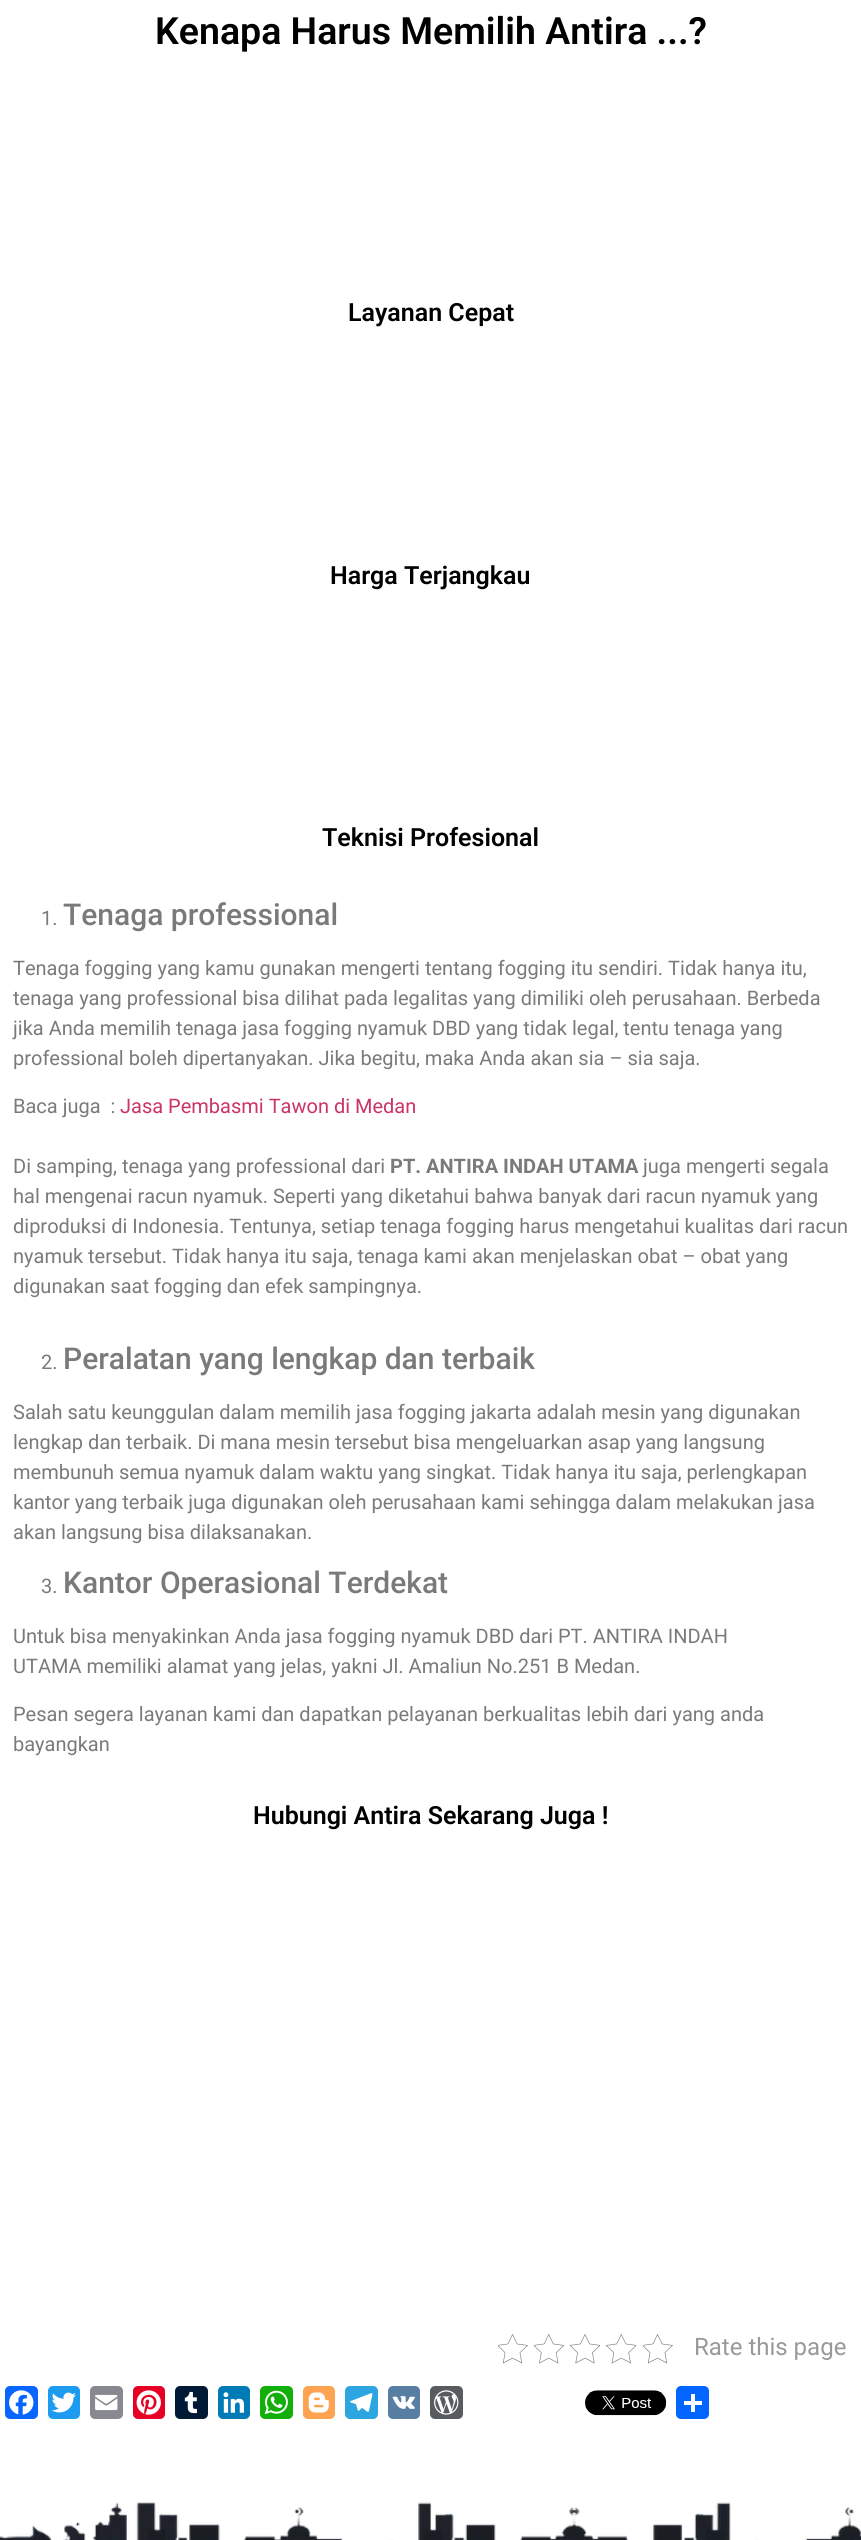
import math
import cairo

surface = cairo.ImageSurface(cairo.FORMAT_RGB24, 861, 2540)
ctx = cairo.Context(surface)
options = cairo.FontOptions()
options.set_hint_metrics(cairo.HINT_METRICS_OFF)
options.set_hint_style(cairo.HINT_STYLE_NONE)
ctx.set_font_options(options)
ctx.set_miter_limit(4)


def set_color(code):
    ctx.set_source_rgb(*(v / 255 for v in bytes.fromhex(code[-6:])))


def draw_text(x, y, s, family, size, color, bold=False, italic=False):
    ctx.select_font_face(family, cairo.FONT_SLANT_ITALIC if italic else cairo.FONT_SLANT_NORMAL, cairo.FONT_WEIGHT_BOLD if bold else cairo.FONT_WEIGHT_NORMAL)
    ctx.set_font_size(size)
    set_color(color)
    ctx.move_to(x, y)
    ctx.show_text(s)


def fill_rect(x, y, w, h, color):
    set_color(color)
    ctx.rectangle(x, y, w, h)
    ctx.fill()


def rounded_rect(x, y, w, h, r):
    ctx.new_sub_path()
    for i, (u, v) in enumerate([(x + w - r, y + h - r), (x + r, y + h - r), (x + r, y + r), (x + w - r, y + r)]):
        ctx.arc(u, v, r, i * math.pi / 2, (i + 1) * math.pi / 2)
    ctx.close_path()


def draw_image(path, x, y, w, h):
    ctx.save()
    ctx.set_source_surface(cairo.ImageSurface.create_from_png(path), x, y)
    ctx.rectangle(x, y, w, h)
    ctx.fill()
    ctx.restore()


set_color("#ffffff")
ctx.paint()
draw_text(155, 44, "Kenapa Harus Memilih Antira ...?", "Roboto SemiBold", 37.5, "#000000")
draw_text(348, 321, "Layanan Cepat", "Roboto SemiBold", 25, "#000000")
draw_text(330, 584, "Harga Terjangkau", "Roboto SemiBold", 25, "#000000")
draw_text(322, 846, "Teknisi Profesional", "Roboto SemiBold", 25, "#000000")
draw_text(41, 925, "1.", "Roboto", 20, "#7a7a7a")
draw_text(63, 925, "Tenaga professional", "Roboto Medium", 30, "#7a7a7a")
draw_text(13, 975, "Tenaga fogging yang kamu gunakan mengerti tentang fogging itu sendiri. Tidak hanya itu,", "Roboto", 20, "#7a7a7a")
draw_text(13, 1005, "tenaga yang professional bisa dilihat pada legalitas yang dimiliki oleh perusahaan. Berbeda", "Roboto", 20, "#7a7a7a")
draw_text(13, 1035, "jika Anda memilih tenaga jasa fogging nyamuk DBD yang tidak legal, tentu tenaga yang", "Roboto", 20, "#7a7a7a")
draw_text(13, 1065, "professional boleh dipertanyakan. Jika begitu, maka Anda akan sia – sia saja.", "Roboto", 20, "#7a7a7a")
draw_text(13, 1113, "Baca juga  :", "Roboto", 20, "#7a7a7a")
draw_text(120, 1113, "Jasa Pembasmi Tawon di Medan", "Roboto", 20, "#cc3366")
draw_text(13, 1173, "Di samping, tenaga yang professional dari", "Roboto", 20, "#7a7a7a")
draw_text(390, 1173, "PT. ANTIRA INDAH UTAMA", "Roboto", 20, "#7a7a7a", bold=True)
draw_text(643, 1173, "juga mengerti segala", "Roboto", 20, "#7a7a7a")
draw_text(13, 1203, "hal mengenai racun nyamuk. Seperti yang diketahui bahwa banyak dari racun nyamuk yang", "Roboto", 20, "#7a7a7a")
draw_text(13, 1233, "diproduksi di Indonesia. Tentunya, setiap tenaga fogging harus mengetahui kualitas dari racun", "Roboto", 20, "#7a7a7a")
draw_text(13, 1263, "nyamuk tersebut. Tidak hanya itu saja, tenaga kami akan menjelaskan obat – obat yang", "Roboto", 20, "#7a7a7a")
draw_text(13, 1293, "digunakan saat fogging dan efek sampingnya.", "Roboto", 20, "#7a7a7a")
draw_text(41, 1369, "2.", "Roboto", 20, "#7a7a7a")
draw_text(63, 1369, "Peralatan yang lengkap dan terbaik", "Roboto Medium", 30, "#7a7a7a")
draw_text(13, 1419, "Salah satu keunggulan dalam memilih jasa fogging jakarta adalah mesin yang digunakan", "Roboto", 20, "#7a7a7a")
draw_text(13, 1449, "lengkap dan terbaik. Di mana mesin tersebut bisa mengeluarkan asap yang langsung", "Roboto", 20, "#7a7a7a")
draw_text(13, 1479, "membunuh semua nyamuk dalam waktu yang singkat. Tidak hanya itu saja, perlengkapan", "Roboto", 20, "#7a7a7a")
draw_text(13, 1509, "kantor yang terbaik juga digunakan oleh perusahaan kami sehingga dalam melakukan jasa", "Roboto", 20, "#7a7a7a")
draw_text(13, 1539, "akan langsung bisa dilaksanakan.", "Roboto", 20, "#7a7a7a")
draw_text(41, 1593, "3.", "Roboto", 20, "#7a7a7a")
draw_text(63, 1593, "Kantor Operasional Terdekat", "Roboto Medium", 30, "#7a7a7a")
draw_text(13, 1643, "Untuk bisa menyakinkan Anda jasa fogging nyamuk DBD dari PT. ANTIRA INDAH", "Roboto", 20, "#7a7a7a")
draw_text(13, 1673, "UTAMA memiliki alamat yang jelas, yakni Jl. Amaliun No.251 B Medan.", "Roboto", 20, "#7a7a7a")
draw_text(13, 1721, "Pesan segera layanan kami dan dapatkan pelayanan berkualitas lebih dari yang anda", "Roboto", 20, "#7a7a7a")
draw_text(13, 1751, "bayangkan", "Roboto", 20, "#7a7a7a")
draw_text(253, 1824, "Hubungi Antira Sekarang Juga !", "Roboto SemiBold", 25, "#000000")
draw_image("assets/img1.png", 498, 2334, 30, 30)
draw_image("assets/img2.png", 534, 2334, 30, 30)
draw_image("assets/img3.png", 570, 2334, 30, 30)
draw_image("assets/img4.png", 606, 2334, 30, 30)
draw_image("assets/img1.png", 643, 2334, 30, 30)
draw_text(694, 2355, "Rate this page", "Roboto", 24, "#999999")
set_color("#0866ff")
rounded_rect(5, 2386, 33, 33, 5)
ctx.fill()
draw_image("assets/img5.png", 9, 2390, 25, 25)
set_color("#1d9bf0")
rounded_rect(48, 2386, 32, 33, 5)
ctx.fill()
draw_image("assets/img6.png", 51, 2392, 25, 21)
set_color("#888990")
rounded_rect(90, 2386, 33, 33, 5)
ctx.fill()
draw_image("assets/img7.png", 95, 2394, 23, 17)
set_color("#e60023")
rounded_rect(133, 2386, 32, 33, 5)
ctx.fill()
draw_image("assets/img8.png", 136, 2390, 25, 25)
set_color("#001935")
rounded_rect(175, 2386, 33, 33, 5)
ctx.fill()
draw_image("assets/img9.png", 184, 2391, 13, 23)
set_color("#007bb5")
rounded_rect(218, 2386, 32, 33, 5)
ctx.fill()
draw_image("assets/img10.png", 223, 2392, 21, 21)
set_color("#12af0a")
rounded_rect(260, 2386, 33, 33, 5)
ctx.fill()
draw_image("assets/img11.png", 264, 2390, 24, 25)
set_color("#fda352")
rounded_rect(303, 2386, 32, 33, 5)
ctx.fill()
draw_image("assets/img12.png", 308, 2392, 21, 21)
set_color("#2ca5e0")
rounded_rect(345, 2386, 33, 33, 5)
ctx.fill()
draw_image("assets/img13.png", 350, 2393, 23, 19)
set_color("#587ea3")
rounded_rect(388, 2386, 32, 33, 5)
ctx.fill()
draw_image("assets/img14.png", 392, 2396, 23, 13)
set_color("#585c60")
rounded_rect(430, 2386, 33, 33, 5)
ctx.fill()
draw_image("assets/img15.png", 434, 2390, 25, 25)
draw_image("assets/img16.png", 585, 2390, 82, 26)
set_color("#0166ff")
rounded_rect(676, 2386, 33, 33, 5)
ctx.fill()
fill_rect(691, 2394, 4, 18, "#ffffff")
fill_rect(684, 2401, 18, 4, "#ffffff")
draw_image("assets/img17.png", 0, 2502, 861, 38)
surface.write_to_png("output.png")
